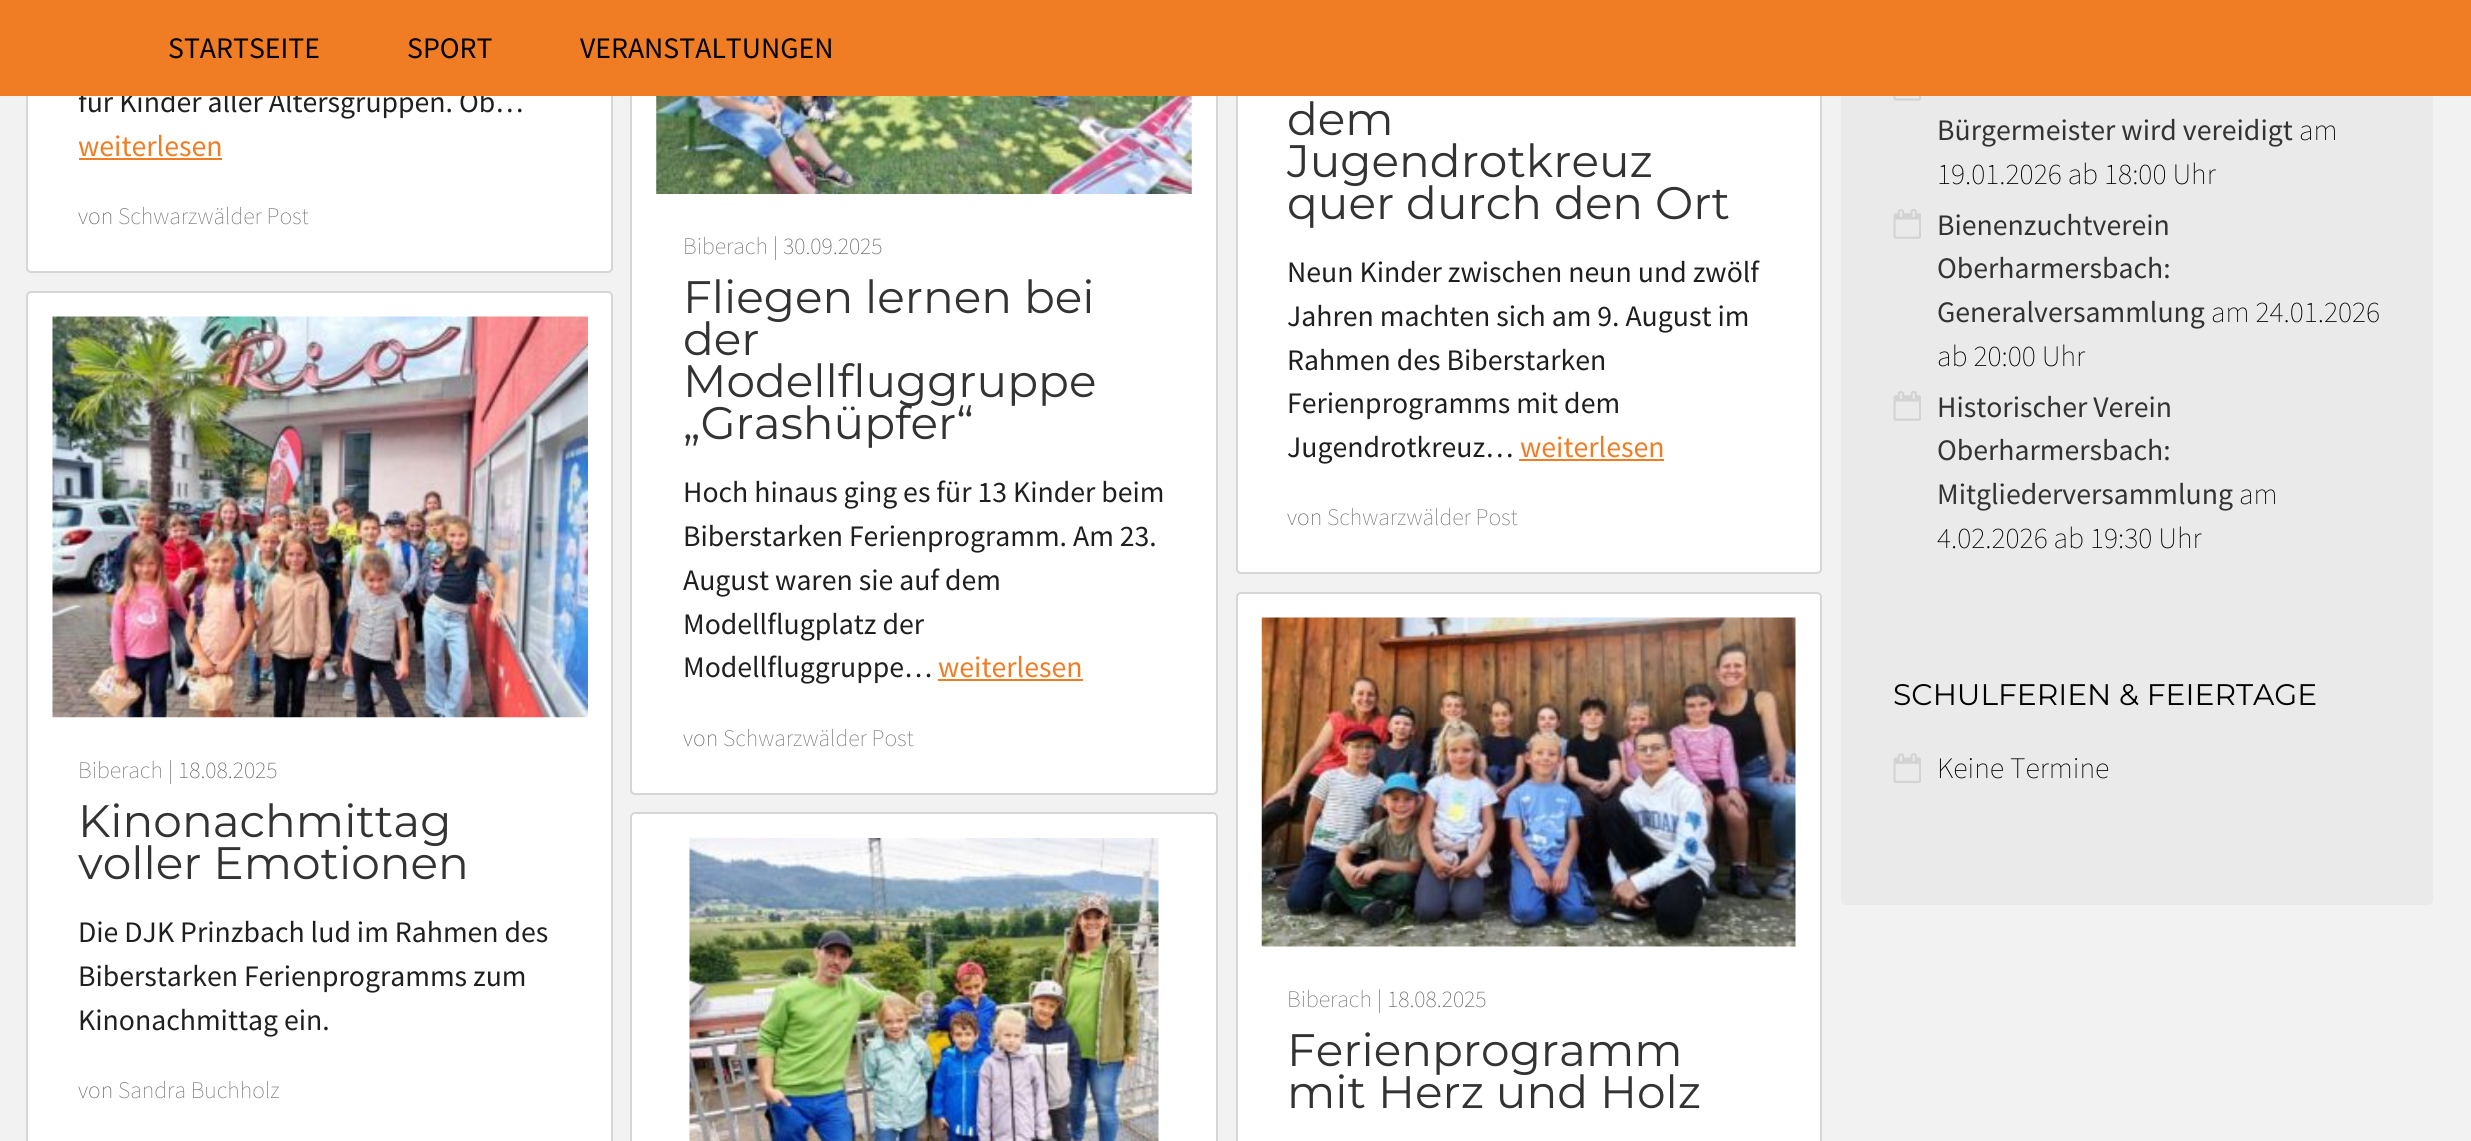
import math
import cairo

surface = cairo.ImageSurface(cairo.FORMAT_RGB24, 2471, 1141)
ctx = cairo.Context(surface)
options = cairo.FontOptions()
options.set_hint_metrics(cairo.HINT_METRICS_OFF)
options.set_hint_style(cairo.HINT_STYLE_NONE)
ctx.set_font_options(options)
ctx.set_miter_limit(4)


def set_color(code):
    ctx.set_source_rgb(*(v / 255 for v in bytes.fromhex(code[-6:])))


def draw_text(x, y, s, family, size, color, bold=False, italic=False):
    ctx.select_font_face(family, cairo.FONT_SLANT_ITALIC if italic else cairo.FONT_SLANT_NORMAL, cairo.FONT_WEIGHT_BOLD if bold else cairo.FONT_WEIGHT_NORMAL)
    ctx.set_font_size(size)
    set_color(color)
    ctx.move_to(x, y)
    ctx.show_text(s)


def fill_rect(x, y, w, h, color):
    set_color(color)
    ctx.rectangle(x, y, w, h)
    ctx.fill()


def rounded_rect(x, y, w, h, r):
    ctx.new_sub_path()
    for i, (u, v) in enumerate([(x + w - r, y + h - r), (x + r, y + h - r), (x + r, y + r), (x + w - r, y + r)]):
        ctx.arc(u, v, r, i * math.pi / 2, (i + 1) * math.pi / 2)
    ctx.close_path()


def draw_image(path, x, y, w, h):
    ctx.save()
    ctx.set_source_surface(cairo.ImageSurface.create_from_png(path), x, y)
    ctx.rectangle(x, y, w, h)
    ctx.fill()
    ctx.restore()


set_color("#f2f2f2")
ctx.paint()
set_color("#ffffff")
rounded_rect(27, -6, 585, 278, 4)
ctx.fill_preserve()
set_color("#d6d6d6")
ctx.stroke()
draw_text(78, 112, "für Kinder aller Altersgruppen. Ob…", "Source Sans Pro", 29.75, "#1f1f1f")
set_color("#ffffff")
rounded_rect(631, -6, 586, 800, 4)
ctx.fill_preserve()
set_color("#d6d6d6")
ctx.stroke()
set_color("#ffffff")
rounded_rect(1237, -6, 584, 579, 4)
ctx.fill_preserve()
set_color("#d6d6d6")
ctx.stroke()
set_color("#eaeaea")
rounded_rect(1841, -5, 592, 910, 5)
ctx.fill()
fill_rect(0, 0, 2471, 96, "#f07d24")
draw_text(168, 58, "STARTSEITE", "Source Sans Pro", 29.75, "#000000")
draw_text(407, 58, "SPORT", "Source Sans Pro", 29.75, "#000000")
draw_text(580, 58, "VERANSTALTUNGEN", "Source Sans Pro", 29.75, "#000000")
draw_text(78, 156, "weiterlesen", "Source Sans Pro", 29.75, "#f07d24")
fill_rect(79, 158, 143, 2, "#f07d24")
draw_text(78, 224, "von", "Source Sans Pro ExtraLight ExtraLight", 23.75, "#666666")
draw_text(118, 224, "Schwarzwälder Post", "Source Sans Pro ExtraLight ExtraLight", 23.75, "#787878")
draw_image("assets/img1.png", 656, 96, 536, 98)
draw_text(683, 254, "Biberach", "Source Sans Pro ExtraLight ExtraLight", 23.75, "#787878")
draw_text(773, 254, "| 30.09.2025", "Source Sans Pro ExtraLight ExtraLight", 23.75, "#666666")
draw_text(683, 313, "Fliegen lernen bei", "Montserrat Thin", 45.5, "#333333")
draw_text(683, 355, "der", "Montserrat Thin", 45.5, "#333333")
draw_text(683, 397, "Modellfluggruppe", "Montserrat Thin", 45.5, "#333333")
draw_text(683, 439, "„Grashüpfer“", "Montserrat Thin", 45.5, "#333333")
draw_text(683, 502, "Hoch hinaus ging es für 13 Kinder beim", "Source Sans Pro", 29.75, "#1f1f1f")
draw_text(683, 546, "Biberstarken Ferienprogramm. Am 23.", "Source Sans Pro", 29.75, "#1f1f1f")
draw_text(683, 590, "August waren sie auf dem", "Source Sans Pro", 29.75, "#1f1f1f")
draw_text(683, 634, "Modellflugplatz der", "Source Sans Pro", 29.75, "#1f1f1f")
draw_text(683, 677, "Modellfluggruppe…", "Source Sans Pro", 29.75, "#1f1f1f")
draw_text(938, 677, "weiterlesen", "Source Sans Pro", 29.75, "#f07d24")
fill_rect(938, 679, 145, 2, "#f07d24")
draw_text(683, 746, "von", "Source Sans Pro ExtraLight ExtraLight", 23.75, "#666666")
draw_text(723, 746, "Schwarzwälder Post", "Source Sans Pro ExtraLight ExtraLight", 23.75, "#787878")
draw_text(1287, 135, "dem", "Montserrat Thin", 45.5, "#333333")
draw_text(1287, 177, "Jugendrotkreuz", "Montserrat Thin", 45.5, "#333333")
draw_text(1287, 219, "quer durch den Ort", "Montserrat Thin", 45.5, "#333333")
draw_text(1287, 282, "Neun Kinder zwischen neun und zwölf", "Source Sans Pro", 29.75, "#1f1f1f")
draw_text(1287, 326, "Jahren machten sich am 9. August im", "Source Sans Pro", 29.75, "#1f1f1f")
draw_text(1287, 370, "Rahmen des Biberstarken", "Source Sans Pro", 29.75, "#1f1f1f")
draw_text(1287, 413, "Ferienprogramms mit dem", "Source Sans Pro", 29.75, "#1f1f1f")
draw_text(1287, 457, "Jugendrotkreuz…", "Source Sans Pro", 29.75, "#1f1f1f")
draw_text(1520, 457, "weiterlesen", "Source Sans Pro", 29.75, "#f07d24")
fill_rect(1519, 459, 145, 2, "#f07d24")
draw_text(1287, 525, "von", "Source Sans Pro ExtraLight ExtraLight", 23.75, "#666666")
draw_text(1327, 525, "Schwarzwälder Post", "Source Sans Pro ExtraLight ExtraLight", 23.75, "#787878")
set_color("#ffffff")
rounded_rect(27, 292, 585, 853, 4)
ctx.fill_preserve()
set_color("#d6d6d6")
ctx.stroke()
draw_image("assets/img2.png", 52, 316, 536, 402)
draw_text(78, 778, "Biberach", "Source Sans Pro ExtraLight ExtraLight", 23.75, "#787878")
draw_text(168, 778, "| 18.08.2025", "Source Sans Pro ExtraLight ExtraLight", 23.75, "#666666")
draw_text(78, 837, "Kinonachmittag", "Montserrat Thin", 45.5, "#333333")
draw_text(78, 879, "voller Emotionen", "Montserrat Thin", 45.5, "#333333")
draw_text(78, 942, "Die DJK Prinzbach lud im Rahmen des", "Source Sans Pro", 29.75, "#1f1f1f")
draw_text(78, 986, "Biberstarken Ferienprogramms zum", "Source Sans Pro", 29.75, "#1f1f1f")
draw_text(78, 1030, "Kinonachmittag ein.", "Source Sans Pro", 29.75, "#1f1f1f")
draw_text(78, 1098, "von", "Source Sans Pro ExtraLight ExtraLight", 23.75, "#666666")
draw_text(118, 1098, "Sandra Buchholz", "Source Sans Pro ExtraLight ExtraLight", 23.75, "#787878")
set_color("#ffffff")
rounded_rect(631, 813, 586, 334, 4)
ctx.fill_preserve()
set_color("#d6d6d6")
ctx.stroke()
draw_image("assets/img3.png", 689, 838, 470, 303)
set_color("#ffffff")
rounded_rect(1237, 593, 584, 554, 4)
ctx.fill_preserve()
set_color("#d6d6d6")
ctx.stroke()
draw_image("assets/img4.png", 1261, 617, 535, 330)
draw_text(1287, 1007, "Biberach", "Source Sans Pro ExtraLight ExtraLight", 23.75, "#787878")
draw_text(1377, 1007, "| 18.08.2025", "Source Sans Pro ExtraLight ExtraLight", 23.75, "#666666")
draw_text(1287, 1066, "Ferienprogramm", "Montserrat Thin", 45.5, "#333333")
draw_text(1287, 1108, "mit Herz und Holz", "Montserrat Thin", 45.5, "#333333")
draw_image("assets/img5.png", 1893, 96, 28, 5)
draw_text(1937, 140, "Bürgermeister wird vereidigt", "Source Sans Pro", 29.75, "#333333")
draw_text(2299, 140, "am", "Source Sans Pro ExtraLight ExtraLight", 29.75, "#000000")
draw_text(1937, 184, "19.01.2026 ab 18:00 Uhr", "Source Sans Pro ExtraLight ExtraLight", 29.75, "#000000")
draw_image("assets/img6.png", 1893, 209, 28, 30)
draw_text(1937, 235, "Bienenzuchtverein", "Source Sans Pro", 29.75, "#333333")
draw_text(1937, 278, "Oberharmersbach:", "Source Sans Pro", 29.75, "#333333")
draw_text(1937, 322, "Generalversammlung", "Source Sans Pro", 29.75, "#333333")
draw_text(2211, 322, "am 24.01.2026", "Source Sans Pro ExtraLight ExtraLight", 29.75, "#000000")
draw_text(1937, 366, "ab 20:00 Uhr", "Source Sans Pro ExtraLight ExtraLight", 29.75, "#000000")
draw_image("assets/img6.png", 1893, 391, 28, 30)
draw_text(1937, 417, "Historischer Verein", "Source Sans Pro", 29.75, "#333333")
draw_text(1937, 460, "Oberharmersbach:", "Source Sans Pro", 29.75, "#333333")
draw_text(1937, 504, "Mitgliederversammlung", "Source Sans Pro", 29.75, "#333333")
draw_text(2239, 504, "am", "Source Sans Pro ExtraLight ExtraLight", 29.75, "#000000")
draw_text(1937, 548, "4.02.2026 ab 19:30 Uhr", "Source Sans Pro ExtraLight ExtraLight", 29.75, "#000000")
draw_text(1893, 705, "SCHULFERIEN & FEIERTAGE", "Montserrat Thin", 29.75, "#000000")
draw_image("assets/img7.png", 1893, 753, 28, 30)
draw_text(1937, 778, "Keine Termine", "Source Sans Pro ExtraLight ExtraLight", 29.75, "#000000")
surface.write_to_png("output.png")
